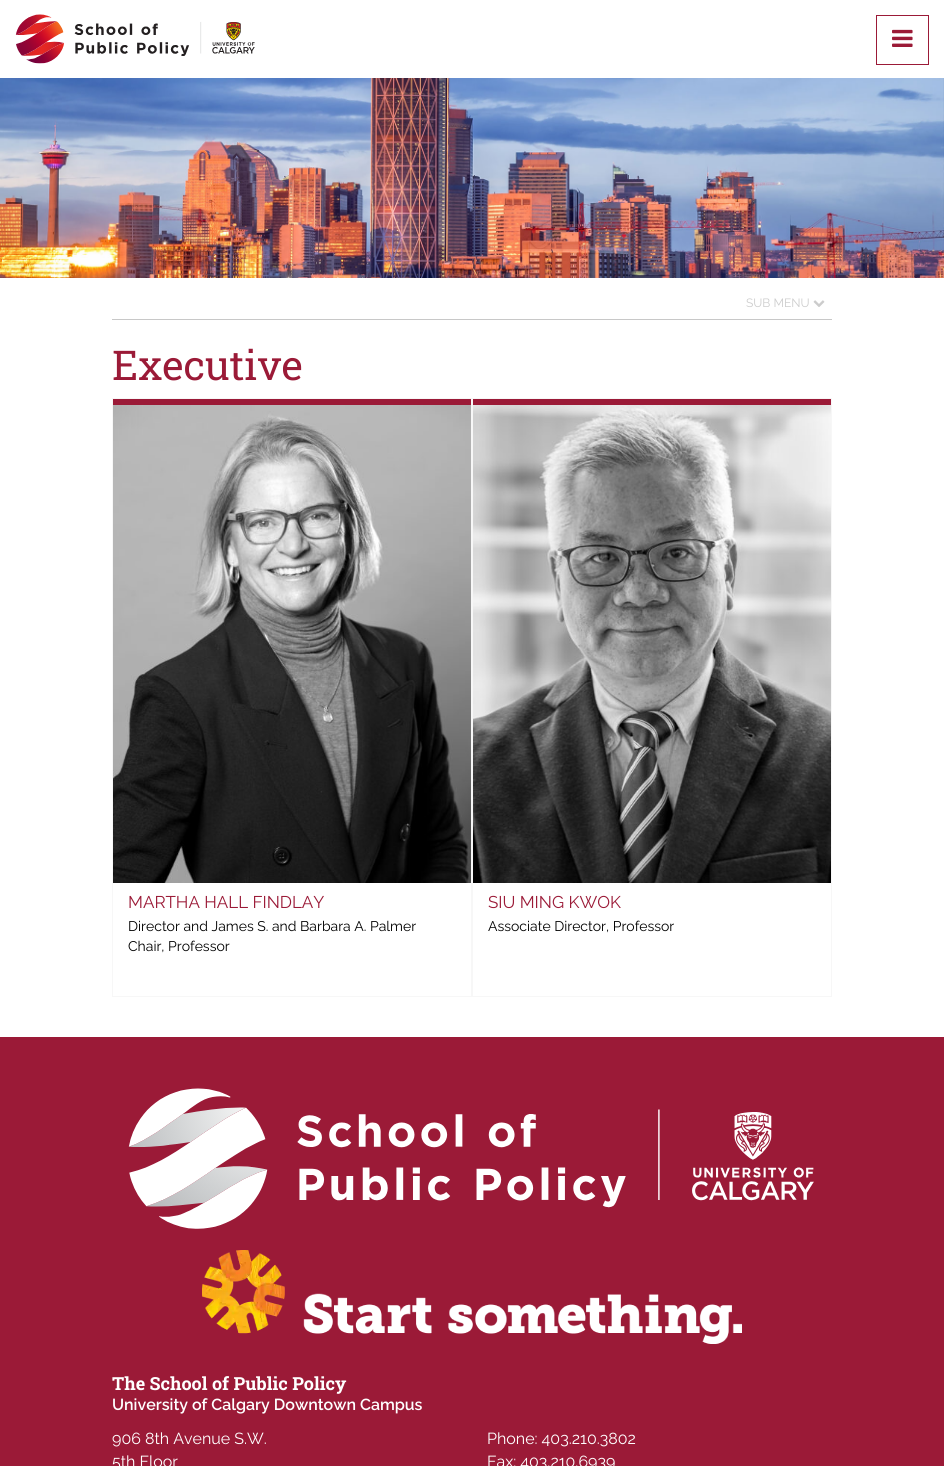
import math
import cairo

surface = cairo.ImageSurface(cairo.FORMAT_RGB24, 944, 1466)
ctx = cairo.Context(surface)
options = cairo.FontOptions()
options.set_hint_metrics(cairo.HINT_METRICS_OFF)
options.set_hint_style(cairo.HINT_STYLE_NONE)
ctx.set_font_options(options)
ctx.set_miter_limit(4)


def set_color(code):
    ctx.set_source_rgb(*(v / 255 for v in bytes.fromhex(code[-6:])))


def draw_text(x, y, s, family, size, color, bold=False, italic=False):
    ctx.select_font_face(family, cairo.FONT_SLANT_ITALIC if italic else cairo.FONT_SLANT_NORMAL, cairo.FONT_WEIGHT_BOLD if bold else cairo.FONT_WEIGHT_NORMAL)
    ctx.set_font_size(size)
    set_color(color)
    ctx.move_to(x, y)
    ctx.show_text(s)


def fill_rect(x, y, w, h, color):
    set_color(color)
    ctx.rectangle(x, y, w, h)
    ctx.fill()


def draw_image(path, x, y, w, h):
    ctx.save()
    ctx.set_source_surface(cairo.ImageSurface.create_from_png(path), x, y)
    ctx.rectangle(x, y, w, h)
    ctx.fill()
    ctx.restore()


set_color("#ffffff")
ctx.paint()
draw_image("assets/img1.png", 15, 14, 240, 50)
ctx.rectangle(876.5, 15.5, 52, 49)
set_color("#9b1a37")
ctx.set_line_width(1)
ctx.stroke()
draw_image("assets/img2.png", 892, 29, 21, 18)
draw_image("assets/img3.png", 0, 78, 944, 200)
fill_rect(112, 319, 720, 1, "#c8c8c8")
draw_text(746, 307, "SUB MENU", "Raleway", 12, "#cccccc")
draw_image("assets/img4.png", 813, 300, 12, 7)
draw_text(112, 380, "Executive", "Roboto Slab", 41, "#9b1a37")
fill_rect(112, 398, 720, 10, "#f7f7f7")
ctx.rectangle(112.5, 408.5, 359, 588)
ctx.stroke()
fill_rect(113, 399, 358, 6, "#9b1a37")
draw_image("assets/img5.png", 113, 405, 358, 478)
draw_text(128, 908, "MARTHA HALL FINDLAY", "Raleway", 17, "#9b1a37")
draw_text(128, 931, "Director and James S. and Barbara A. Palmer", "Raleway", 14, "#000000")
draw_text(128, 951, "Chair, Professor", "Raleway", 14, "#000000")
ctx.rectangle(472.5, 408.5, 359, 588)
set_color("#f7f7f7")
ctx.stroke()
fill_rect(473, 399, 358, 6, "#9b1a37")
draw_image("assets/img6.png", 473, 405, 358, 478)
draw_text(488, 908, "SIU MING KWOK", "Raleway", 17, "#9b1a37")
draw_text(488, 931, "Associate Director, Professor", "Raleway", 14, "#000000")
fill_rect(0, 1037, 944, 429, "#9b1a37")
draw_image("assets/img7.png", 128, 1088, 686, 141)
draw_image("assets/img8.png", 202, 1250, 540, 94)
draw_text(112, 1390, "The School of Public Policy", "Roboto Slab", 18, "#ffffff", bold=True)
draw_text(112, 1410, "University of Calgary Downtown Campus", "Raleway SemiBold", 16, "#ffffff")
draw_text(112, 1444, "906 8th Avenue S.W.", "Raleway", 16, "#ffffff")
draw_text(112, 1467, "5th Floor", "Raleway", 16, "#ffffff")
draw_text(487, 1444, "Phone: 403.210.3802", "Raleway", 16, "#ffffff")
draw_text(487, 1467, "Fax: 403.210.6939", "Raleway", 16, "#ffffff")
surface.write_to_png("output.png")
